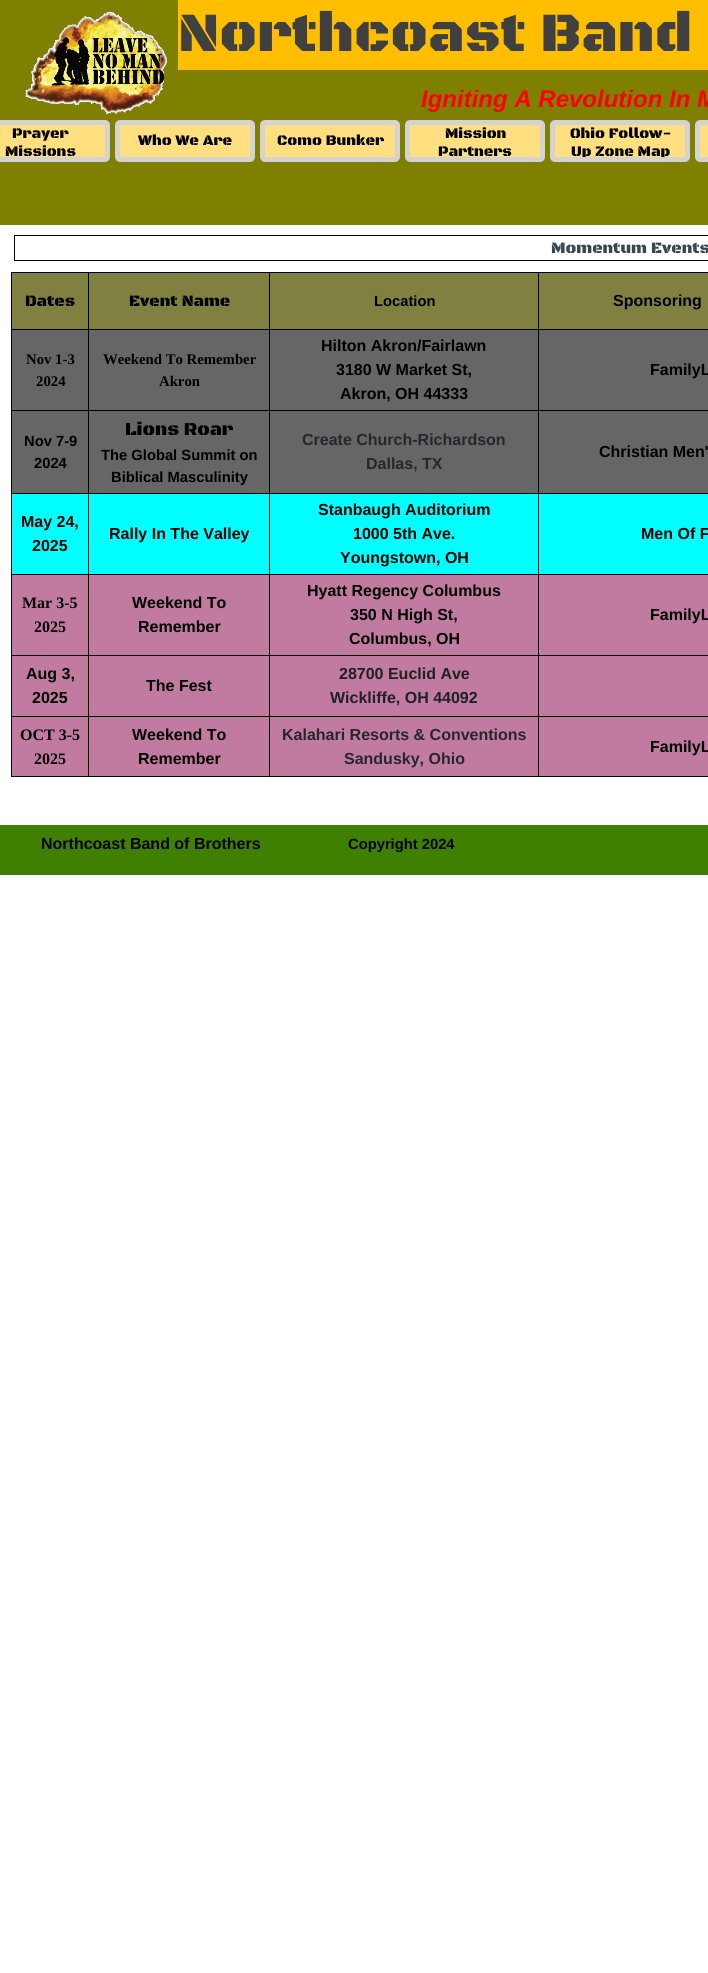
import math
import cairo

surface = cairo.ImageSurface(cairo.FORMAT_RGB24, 708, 1973)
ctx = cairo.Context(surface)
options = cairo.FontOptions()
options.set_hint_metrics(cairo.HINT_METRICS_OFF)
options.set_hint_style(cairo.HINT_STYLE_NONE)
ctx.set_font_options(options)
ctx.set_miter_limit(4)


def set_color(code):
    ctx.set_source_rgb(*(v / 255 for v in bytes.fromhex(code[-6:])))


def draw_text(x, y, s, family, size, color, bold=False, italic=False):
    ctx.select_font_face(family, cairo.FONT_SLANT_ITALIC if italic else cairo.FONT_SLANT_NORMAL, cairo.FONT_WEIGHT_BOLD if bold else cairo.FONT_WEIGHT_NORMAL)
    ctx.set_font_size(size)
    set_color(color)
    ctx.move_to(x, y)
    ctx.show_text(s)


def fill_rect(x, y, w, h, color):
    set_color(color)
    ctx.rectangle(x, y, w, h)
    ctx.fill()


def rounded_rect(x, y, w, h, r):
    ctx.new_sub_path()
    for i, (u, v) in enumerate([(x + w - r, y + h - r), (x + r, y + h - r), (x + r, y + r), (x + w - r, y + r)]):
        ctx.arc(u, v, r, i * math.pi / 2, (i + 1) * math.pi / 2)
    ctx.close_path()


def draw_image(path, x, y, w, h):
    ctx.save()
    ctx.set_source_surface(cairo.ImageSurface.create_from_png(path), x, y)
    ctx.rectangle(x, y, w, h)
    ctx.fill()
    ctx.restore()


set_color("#ffffff")
ctx.paint()
fill_rect(0, 0, 708, 225, "#808000")
draw_image("assets/img1.png", 25, 11, 142, 103)
fill_rect(178, 0, 530, 70, "#ffbf00")
draw_text(178, 51, "Northcoast Band", "Black Ops One Black", 56, "#404040")
draw_text(421, 107, "Igniting A Revolution In M", "Liberation Sans", 24, "#ff0000", bold=True, italic=True)
set_color("#ffdf80")
rounded_rect(-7.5, 122.5, 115, 37, 2.5)
ctx.fill_preserve()
set_color("#d3d3d3")
ctx.set_line_width(5)
ctx.stroke()
draw_text(12, 138, "Prayer", "Black Ops One Black", 14.75, "#000000")
draw_text(5, 156, "Missions", "Black Ops One Black", 14.75, "#000000")
set_color("#ffdf80")
rounded_rect(117.5, 122.5, 135, 37, 2.5)
ctx.fill_preserve()
set_color("#d3d3d3")
ctx.stroke()
draw_text(138, 145, "Who We Are", "Black Ops One Black", 14.75, "#000000")
set_color("#ffdf80")
rounded_rect(262.5, 122.5, 135, 37, 2.5)
ctx.fill_preserve()
set_color("#d3d3d3")
ctx.stroke()
draw_text(277, 145, "Como Bunker", "Black Ops One Black", 14.75, "#000000")
set_color("#ffdf80")
rounded_rect(407.5, 122.5, 135, 37, 2.5)
ctx.fill_preserve()
set_color("#d3d3d3")
ctx.stroke()
draw_text(445, 138, "Mission", "Black Ops One Black", 14.75, "#000000")
draw_text(438, 156, "Partners", "Black Ops One Black", 14.75, "#000000")
set_color("#ffdf80")
rounded_rect(552.5, 122.5, 135, 37, 2.5)
ctx.fill_preserve()
set_color("#d3d3d3")
ctx.stroke()
draw_text(570, 138, "Ohio Follow-", "Black Ops One Black", 14.75, "#000000")
ctx.save()
ctx.rectangle(555, 125, 130, 32)
ctx.clip()
draw_text(571, 156, "Up Zone Map", "Black Ops One Black", 14.75, "#000000")
ctx.restore()
set_color("#ffdf80")
rounded_rect(697.5, 122.5, 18, 37, 2.5)
ctx.fill_preserve()
set_color("#d3d3d3")
ctx.stroke()
ctx.rectangle(14.5, 235.5, 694, 25)
set_color("#000000")
ctx.set_line_width(1)
ctx.stroke()
draw_text(551, 253, "Momentum Events", "Black Ops One Black", 16, "#36474f")
fill_rect(12, 273, 76, 56, "#808040")
fill_rect(538, 272, 170, 1, "#000000")
fill_rect(538, 329, 170, 1, "#000000")
fill_rect(538, 410, 170, 1, "#000000")
fill_rect(538, 493, 170, 1, "#000000")
fill_rect(538, 574, 170, 1, "#000000")
fill_rect(538, 655, 170, 1, "#000000")
fill_rect(538, 716, 170, 1, "#000000")
fill_rect(538, 776, 170, 1, "#000000")
fill_rect(538, 716, 1, 61, "#000000")
fill_rect(269, 716, 270, 1, "#000000")
fill_rect(538, 655, 1, 62, "#000000")
fill_rect(269, 655, 270, 1, "#000000")
fill_rect(538, 574, 1, 82, "#000000")
fill_rect(269, 574, 270, 1, "#000000")
fill_rect(538, 493, 1, 82, "#000000")
fill_rect(269, 493, 270, 1, "#000000")
fill_rect(538, 410, 1, 84, "#000000")
fill_rect(269, 410, 270, 1, "#000000")
fill_rect(538, 329, 1, 82, "#000000")
fill_rect(269, 329, 270, 1, "#000000")
fill_rect(538, 272, 1, 58, "#000000")
fill_rect(269, 272, 270, 1, "#000000")
fill_rect(269, 776, 270, 1, "#000000")
fill_rect(269, 716, 1, 61, "#000000")
fill_rect(88, 716, 182, 1, "#000000")
fill_rect(269, 655, 1, 62, "#000000")
fill_rect(88, 655, 182, 1, "#000000")
fill_rect(269, 574, 1, 82, "#000000")
fill_rect(88, 574, 182, 1, "#000000")
fill_rect(269, 493, 1, 82, "#000000")
fill_rect(88, 493, 182, 1, "#000000")
fill_rect(269, 410, 1, 84, "#000000")
fill_rect(88, 410, 182, 1, "#000000")
fill_rect(269, 329, 1, 82, "#000000")
fill_rect(88, 329, 182, 1, "#000000")
fill_rect(269, 272, 1, 58, "#000000")
fill_rect(88, 272, 182, 1, "#000000")
fill_rect(88, 776, 182, 1, "#000000")
fill_rect(88, 716, 1, 61, "#000000")
fill_rect(11, 716, 78, 1, "#000000")
fill_rect(88, 655, 1, 62, "#000000")
fill_rect(11, 655, 78, 1, "#000000")
fill_rect(88, 574, 1, 82, "#000000")
fill_rect(11, 574, 78, 1, "#000000")
fill_rect(88, 493, 1, 82, "#000000")
fill_rect(11, 493, 78, 1, "#000000")
fill_rect(88, 410, 1, 84, "#000000")
fill_rect(11, 410, 78, 1, "#000000")
fill_rect(88, 329, 1, 82, "#000000")
fill_rect(11, 329, 78, 1, "#000000")
fill_rect(88, 272, 1, 58, "#000000")
fill_rect(11, 272, 78, 1, "#000000")
fill_rect(11, 776, 78, 1, "#000000")
fill_rect(11, 716, 1, 61, "#000000")
fill_rect(11, 655, 1, 62, "#000000")
fill_rect(11, 574, 1, 82, "#000000")
fill_rect(11, 493, 1, 82, "#000000")
fill_rect(11, 410, 1, 84, "#000000")
fill_rect(11, 329, 1, 82, "#000000")
fill_rect(11, 272, 1, 58, "#000000")
draw_text(25, 306, "Dates", "Black Ops One Black", 16, "#000000")
fill_rect(89, 273, 180, 56, "#808040")
draw_text(129, 306, "Event Name", "Black Ops One Black", 16, "#000000")
fill_rect(270, 273, 268, 56, "#808040")
draw_text(374, 306, "Location", "Liberation Sans", 14.75, "#000000", bold=True)
fill_rect(539, 273, 169, 56, "#808040")
draw_text(613, 306, "Sponsoring", "Liberation Sans", 16, "#000000", bold=True)
fill_rect(12, 330, 76, 80, "#666666")
draw_text(26, 364, "Nov 1-3", "Liberation Serif", 14.75, "#000000", bold=True)
draw_text(36, 386, "2024", "Liberation Serif", 14.75, "#000000", bold=True)
fill_rect(89, 330, 180, 80, "#666666")
draw_text(103, 364, "Weekend To Remember", "Liberation Serif", 14.75, "#000000", bold=True)
draw_text(159, 386, "Akron", "Liberation Serif", 14.75, "#000000", bold=True)
fill_rect(270, 330, 268, 80, "#666666")
draw_text(321, 351, "Hilton Akron/Fairlawn", "Liberation Sans", 16, "#000000", bold=True)
draw_text(336, 375, "3180 W Market St,", "Liberation Sans", 16, "#000000", bold=True)
draw_text(340, 399, "Akron, OH 44333", "Liberation Sans", 16, "#000000", bold=True)
fill_rect(539, 330, 169, 80, "#666666")
draw_text(650, 375, "FamilyL", "Liberation Sans", 16, "#000000", bold=True)
fill_rect(12, 411, 76, 82, "#666666")
draw_text(24, 446, "Nov 7-9", "Liberation Sans", 14.75, "#000000", bold=True)
draw_text(34, 468, "2024", "Liberation Sans", 14.75, "#000000", bold=True)
fill_rect(89, 411, 180, 82, "#666666")
draw_text(125, 435, "Lions Roar", "Black Ops One Black", 18.5, "#000000")
draw_text(101, 460, "The Global Summit on", "Liberation Sans", 14.75, "#000000", bold=True)
draw_text(111, 482, "Biblical Masculinity", "Liberation Sans", 14.75, "#000000", bold=True)
fill_rect(270, 411, 268, 82, "#666666")
draw_text(302, 445, "Create Church-Richardson", "Liberation Sans", 16, "#24272b", bold=True)
draw_text(366, 469, "Dallas, TX", "Liberation Sans", 16, "#24272b", bold=True)
fill_rect(539, 411, 169, 82, "#666666")
draw_text(599, 457, "Christian Men'", "Liberation Sans", 16, "#000000", bold=True)
fill_rect(12, 494, 76, 80, "#00ffff")
draw_text(21, 527, "May 24,", "Liberation Sans", 16, "#000000", bold=True)
draw_text(32, 551, "2025", "Liberation Sans", 16, "#000000", bold=True)
fill_rect(89, 494, 180, 80, "#00ffff")
draw_text(109, 539, "Rally In The Valley", "Liberation Sans", 16, "#000000", bold=True)
fill_rect(270, 494, 268, 80, "#00ffff")
draw_text(318, 515, "Stanbaugh Auditorium", "Liberation Sans", 16, "#000000", bold=True)
draw_text(353, 539, "1000 5th Ave.", "Liberation Sans", 16, "#000000", bold=True)
draw_text(340, 563, "Youngstown, OH", "Liberation Sans", 16, "#000000", bold=True)
fill_rect(539, 494, 169, 80, "#00ffff")
draw_text(641, 539, "Men Of F", "Liberation Sans", 16, "#000000", bold=True)
fill_rect(12, 575, 76, 80, "#c27ba0")
draw_text(22, 608, "Mar 3-5", "Liberation Serif", 16, "#000000", bold=True)
draw_text(34, 632, "2025", "Liberation Serif", 16, "#000000", bold=True)
fill_rect(89, 575, 180, 80, "#c27ba0")
draw_text(132, 608, "Weekend To", "Liberation Sans", 16, "#000000", bold=True)
draw_text(138, 632, "Remember", "Liberation Sans", 16, "#000000", bold=True)
fill_rect(270, 575, 268, 80, "#c27ba0")
draw_text(307, 596, "Hyatt Regency Columbus", "Liberation Sans", 16, "#000000", bold=True)
draw_text(350, 620, "350 N High St,", "Liberation Sans", 16, "#000000", bold=True)
draw_text(349, 644, "Columbus, OH", "Liberation Sans", 16, "#000000", bold=True)
fill_rect(539, 575, 169, 80, "#c27ba0")
draw_text(650, 620, "FamilyL", "Liberation Sans", 16, "#000000", bold=True)
fill_rect(12, 656, 76, 60, "#c27ba0")
draw_text(26, 679, "Aug 3,", "Liberation Sans", 16, "#000000", bold=True)
draw_text(32, 703, "2025", "Liberation Sans", 16, "#000000", bold=True)
fill_rect(89, 656, 180, 60, "#c27ba0")
draw_text(146, 691, "The Fest", "Liberation Sans", 16, "#000000", bold=True)
fill_rect(270, 656, 268, 60, "#c27ba0")
draw_text(339, 679, "28700 Euclid Ave", "Liberation Sans", 16, "#202124", bold=True)
draw_text(330, 703, "Wickliffe, OH 44092", "Liberation Sans", 16, "#202124", bold=True)
fill_rect(539, 656, 169, 60, "#c27ba0")
fill_rect(12, 717, 76, 59, "#c27ba0")
draw_text(20, 740, "OCT 3-5", "Liberation Serif", 16, "#000000", bold=True)
draw_text(34, 764, "2025", "Liberation Serif", 16, "#000000", bold=True)
fill_rect(89, 717, 180, 59, "#c27ba0")
draw_text(132, 740, "Weekend To", "Liberation Sans", 16, "#000000", bold=True)
draw_text(138, 764, "Remember", "Liberation Sans", 16, "#000000", bold=True)
fill_rect(270, 717, 268, 59, "#c27ba0")
draw_text(282, 740, "Kalahari Resorts & Conventions", "Liberation Sans", 16, "#24272b", bold=True)
draw_text(344, 764, "Sandusky, Ohio", "Liberation Sans", 16, "#24272b", bold=True)
fill_rect(539, 717, 169, 59, "#c27ba0")
draw_text(650, 752, "FamilyL", "Liberation Sans", 16, "#000000", bold=True)
fill_rect(0, 825, 708, 50, "#408000")
draw_text(41, 849, "Northcoast Band of Brothers", "Liberation Sans", 16, "#000000", bold=True)
draw_text(348, 849, "Copyright 2024", "Liberation Sans", 14.75, "#000000", bold=True)
surface.write_to_png("output.png")
